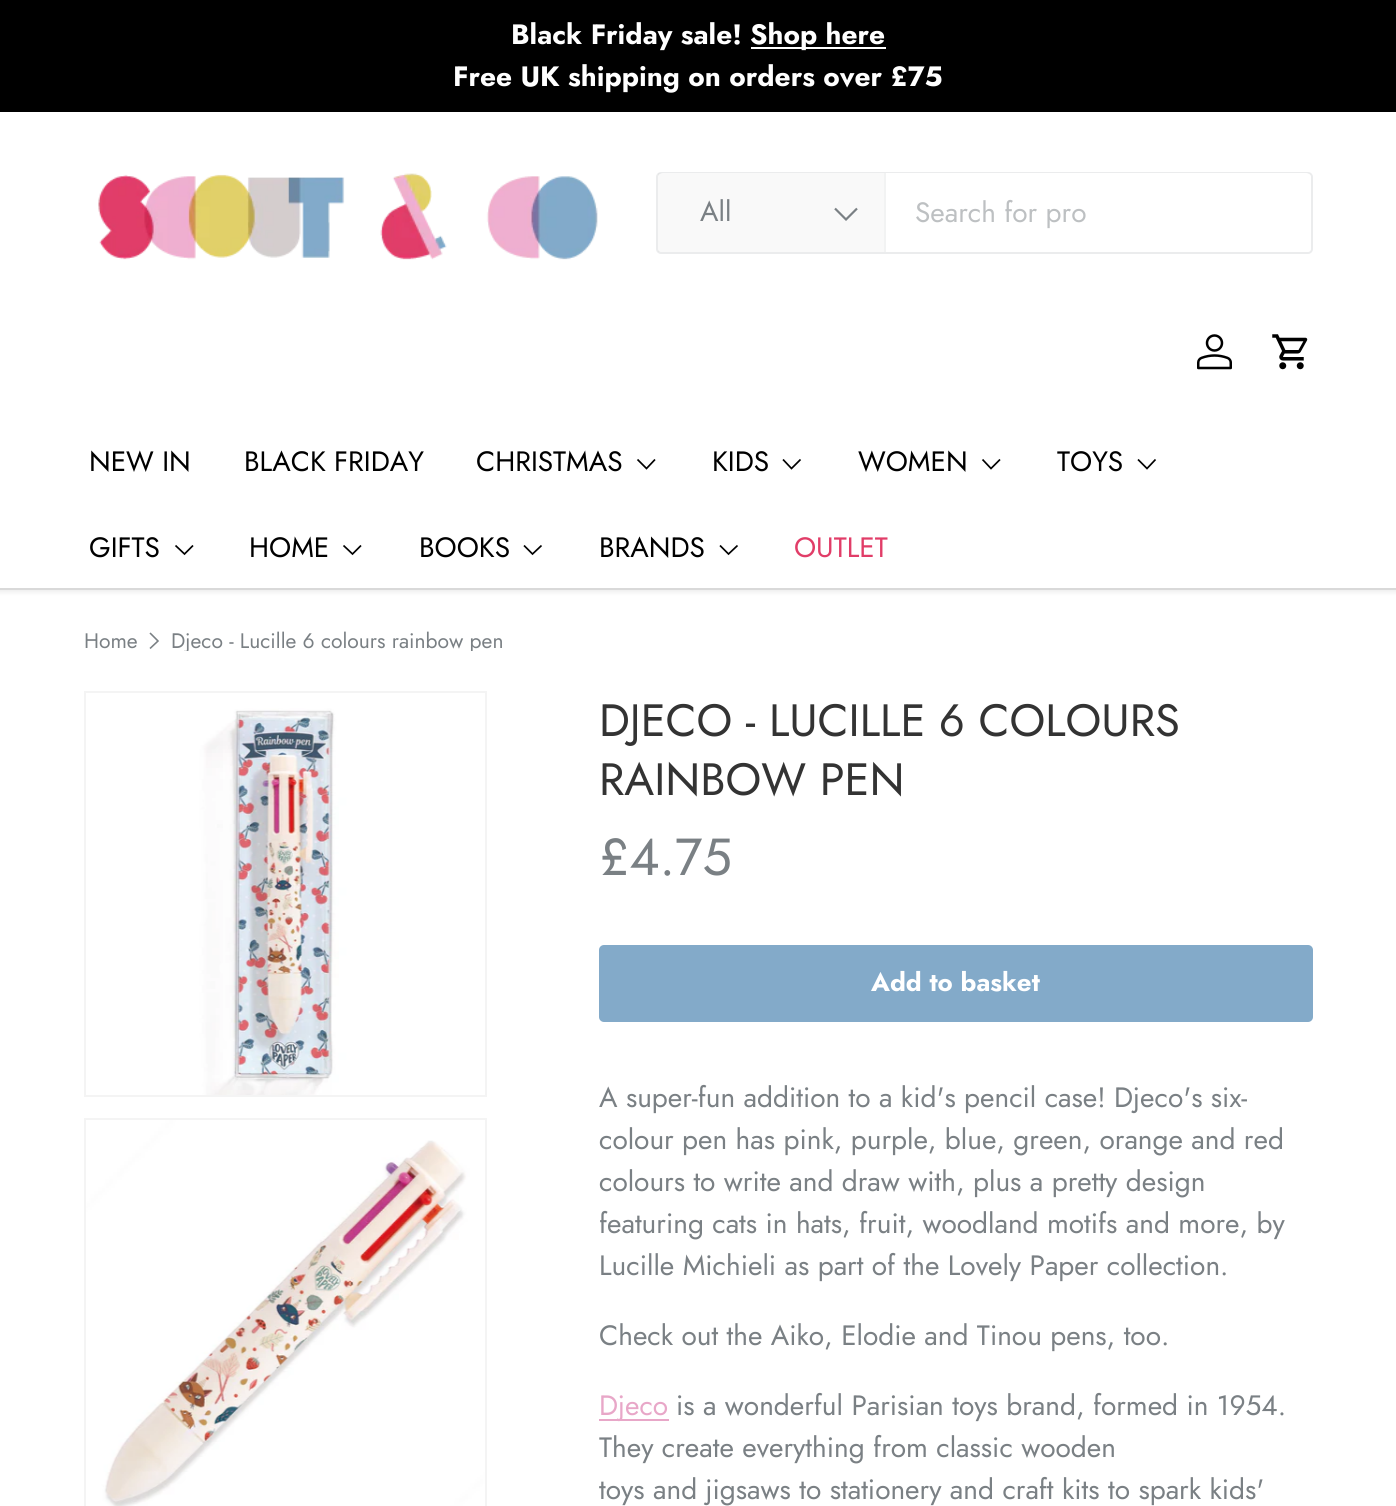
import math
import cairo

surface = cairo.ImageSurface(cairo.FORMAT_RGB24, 1396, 1506)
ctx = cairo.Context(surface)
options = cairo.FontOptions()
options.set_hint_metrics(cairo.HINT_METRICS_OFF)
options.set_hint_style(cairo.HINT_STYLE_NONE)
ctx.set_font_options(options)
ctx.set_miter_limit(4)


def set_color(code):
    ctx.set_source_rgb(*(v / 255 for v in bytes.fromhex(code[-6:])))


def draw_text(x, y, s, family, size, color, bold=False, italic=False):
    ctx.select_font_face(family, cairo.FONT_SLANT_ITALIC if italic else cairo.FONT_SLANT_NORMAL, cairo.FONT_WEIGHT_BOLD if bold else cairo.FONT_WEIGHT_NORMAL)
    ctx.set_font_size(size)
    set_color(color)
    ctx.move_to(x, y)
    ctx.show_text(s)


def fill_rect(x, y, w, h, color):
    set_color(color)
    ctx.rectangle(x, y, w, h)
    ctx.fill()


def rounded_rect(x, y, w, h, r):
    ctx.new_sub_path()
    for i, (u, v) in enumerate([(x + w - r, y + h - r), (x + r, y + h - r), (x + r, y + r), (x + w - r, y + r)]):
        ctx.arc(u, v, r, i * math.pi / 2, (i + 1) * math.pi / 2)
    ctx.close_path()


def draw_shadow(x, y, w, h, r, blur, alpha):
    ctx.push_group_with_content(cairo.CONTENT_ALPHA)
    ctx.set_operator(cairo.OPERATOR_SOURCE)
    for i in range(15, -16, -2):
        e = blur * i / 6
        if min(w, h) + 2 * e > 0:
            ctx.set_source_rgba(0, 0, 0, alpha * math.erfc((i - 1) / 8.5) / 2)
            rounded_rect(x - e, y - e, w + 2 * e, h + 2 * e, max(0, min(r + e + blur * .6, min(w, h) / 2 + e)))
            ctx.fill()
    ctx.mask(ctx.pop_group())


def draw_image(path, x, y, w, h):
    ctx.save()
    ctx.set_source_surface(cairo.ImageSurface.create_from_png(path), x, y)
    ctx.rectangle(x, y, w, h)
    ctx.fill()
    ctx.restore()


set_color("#ffffff")
ctx.paint()
set_color("#000000")
draw_shadow(-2, 110, 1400, 482, 0, 2.5, 0.08)
fill_rect(0, 0, 1396, 112, "#000000")
draw_text(511, 44, "Black Friday sale!", "Jost", 28, "#ffffff", bold=True)
fill_rect(751, 47, 135, 2, "#ffffff")
draw_text(750, 44, "Shop here", "Jost", 28, "#ffffff", bold=True)
draw_text(453, 86, "Free UK shipping on orders over £75", "Jost", 28, "#ffffff", bold=True)
fill_rect(0, 112, 1396, 476, "#ffffff")
draw_image("assets/img1.png", 98, 173, 500, 87)
rounded_rect(657, 173, 655, 80, 4)
set_color("#ebeced")
ctx.stroke()
set_color("#ffffff")
rounded_rect(658, 173, 653, 79, 5)
ctx.fill()
ctx.set_source_rgba(0.478, 0.502, 0.518, 0.05)
ctx.rectangle(658, 173, 226, 79)
ctx.fill()
fill_rect(884, 173, 2, 79, "#f2f3f3")
draw_text(700, 221, "All", "Jost", 28, "#7a8084")
ctx.new_path()
ctx.move_to(857, 208.5)
ctx.line_to(846, 219.5)
ctx.line_to(835, 208.5)
ctx.set_line_width(2.2)
ctx.stroke()
draw_text(915, 222, "Search for pro", "Jost", 28, "#bdc0c2")
draw_image("assets/img2.png", 1197, 334, 35, 36)
draw_image("assets/img3.png", 1272, 334, 36, 36)
draw_text(89, 471, "NEW IN", "Jost", 28, "#000000")
draw_text(244, 471, "BLACK FRIDAY", "Jost", 28, "#000000")
draw_text(476, 471, "CHRISTMAS", "Jost", 28, "#000000")
ctx.new_path()
ctx.move_to(655, 459.5)
ctx.line_to(646.5, 468.5)
ctx.line_to(637.5, 459.5)
ctx.set_line_width(1.7)
ctx.stroke()
draw_text(712, 471, "KIDS", "Jost", 28, "#000000")
ctx.new_path()
ctx.move_to(800.5, 459.5)
ctx.line_to(791.5, 468.5)
ctx.line_to(783, 459.5)
ctx.stroke()
draw_text(858, 471, "WOMEN", "Jost", 28, "#000000")
ctx.new_path()
ctx.move_to(1000, 459.5)
ctx.line_to(991, 468.5)
ctx.line_to(982.5, 459.5)
ctx.stroke()
draw_text(1057, 471, "TOYS", "Jost", 28, "#000000")
ctx.new_path()
ctx.move_to(1155.5, 459.5)
ctx.line_to(1147, 468.5)
ctx.line_to(1138, 459.5)
ctx.stroke()
draw_text(89, 557, "GIFTS", "Jost", 28, "#000000")
ctx.new_path()
ctx.move_to(193, 545.5)
ctx.line_to(184.5, 554)
ctx.line_to(175.5, 545.5)
ctx.stroke()
draw_text(249, 557, "HOME", "Jost", 28, "#000000")
ctx.new_path()
ctx.move_to(361, 545.5)
ctx.line_to(352.5, 554)
ctx.line_to(343.5, 545.5)
ctx.stroke()
draw_text(419, 557, "BOOKS", "Jost", 28, "#000000")
ctx.new_path()
ctx.move_to(541.5, 545.5)
ctx.line_to(532.5, 554)
ctx.line_to(524, 545.5)
ctx.stroke()
draw_text(599, 557, "BRANDS", "Jost", 28, "#000000")
ctx.new_path()
ctx.move_to(737.5, 545.5)
ctx.line_to(728.5, 554)
ctx.line_to(720, 545.5)
ctx.stroke()
draw_text(794, 557, "OUTLET", "Jost", 28, "#e13d68")
fill_rect(0, 588, 1396, 2, "#d9d9d9")
draw_text(84, 648, "Home", "Jost", 21, "#7a8084")
ctx.new_path()
ctx.move_to(150, 633)
ctx.line_to(158, 641)
ctx.line_to(150, 648.5)
ctx.set_line_width(1.6)
ctx.stroke()
ctx.save()
ctx.rectangle(172, 630, 332, 21)
ctx.clip()
draw_text(171, 648, "Djeco - Lucille 6 colours rainbow pen", "Jost", 21, "#7a8084")
ctx.restore()
fill_rect(84, 691, 403, 406, "#f4f4f4")
draw_image("assets/img4.png", 86, 693, 399, 402)
fill_rect(84, 1118, 403, 388, "#f4f4f4")
draw_image("assets/img5.png", 86, 1120, 399, 386)
draw_text(599, 736, "DJECO - LUCILLE 6 COLOURS", "Jost", 45.25, "#333333")
draw_text(599, 795, "RAINBOW PEN", "Jost", 45.25, "#333333")
draw_text(599, 875, "£4.75", "Jost", 52, "#7a8084")
gradient = cairo.LinearGradient(-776, 730, 1259, 1237)
gradient.add_color_stop_rgba(0.6, 0.631, 0.745, 0.839, 1)
gradient.add_color_stop_rgba(0.6, 0.514, 0.667, 0.788, 1)
gradient.add_color_stop_rgba(1, 0.514, 0.667, 0.788, 1)
ctx.set_source(gradient)
rounded_rect(599, 945, 714, 77, 5)
ctx.fill()
draw_text(871, 991, "Add to basket", "Jost", 25.75, "#ffffff", bold=True)
draw_text(599, 1107, "A super-fun addition to a kid's pencil case! Djeco's six-", "Jost", 28, "#7a8084")
draw_text(599, 1149, "colour pen has pink, purple, blue, green, orange and red", "Jost", 28, "#7a8084")
draw_text(599, 1191, "colours to write and draw with, plus a pretty design", "Jost", 28, "#7a8084")
draw_text(599, 1233, "featuring cats in hats, fruit, woodland motifs and more, by", "Jost", 28, "#7a8084")
draw_text(599, 1275, "Lucille Michieli as part of the Lovely Paper collection.", "Jost", 28, "#7a8084")
draw_text(599, 1345, "Check out the Aiko, Elodie and Tinou pens, too.", "Jost", 28, "#7a8084")
fill_rect(599, 1419, 70, 2, "#e8a7c8")
draw_text(599, 1415, "Djeco", "Jost", 28, "#e8a7c8")
draw_text(676, 1415, "is a wonderful Parisian toys brand, formed in 1954.", "Jost", 28, "#7a8084")
ctx.save()
ctx.rectangle(599, 1078, 714, 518)
ctx.clip()
draw_text(599, 1457, "They create everything from classic wooden", "Jost", 28, "#7a8084")
draw_text(599, 1499, "toys and jigsaws to stationery and craft kits to spark kids'", "Jost", 28, "#7a8084")
ctx.restore()
surface.write_to_png("output.png")
